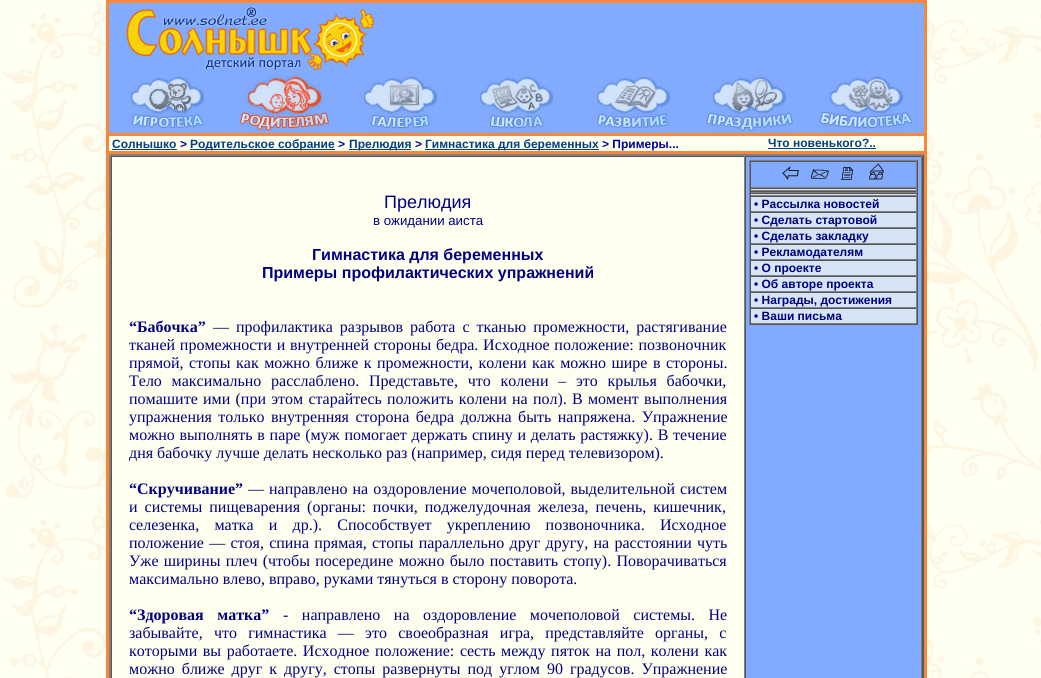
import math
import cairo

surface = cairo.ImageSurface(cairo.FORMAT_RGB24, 1041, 678)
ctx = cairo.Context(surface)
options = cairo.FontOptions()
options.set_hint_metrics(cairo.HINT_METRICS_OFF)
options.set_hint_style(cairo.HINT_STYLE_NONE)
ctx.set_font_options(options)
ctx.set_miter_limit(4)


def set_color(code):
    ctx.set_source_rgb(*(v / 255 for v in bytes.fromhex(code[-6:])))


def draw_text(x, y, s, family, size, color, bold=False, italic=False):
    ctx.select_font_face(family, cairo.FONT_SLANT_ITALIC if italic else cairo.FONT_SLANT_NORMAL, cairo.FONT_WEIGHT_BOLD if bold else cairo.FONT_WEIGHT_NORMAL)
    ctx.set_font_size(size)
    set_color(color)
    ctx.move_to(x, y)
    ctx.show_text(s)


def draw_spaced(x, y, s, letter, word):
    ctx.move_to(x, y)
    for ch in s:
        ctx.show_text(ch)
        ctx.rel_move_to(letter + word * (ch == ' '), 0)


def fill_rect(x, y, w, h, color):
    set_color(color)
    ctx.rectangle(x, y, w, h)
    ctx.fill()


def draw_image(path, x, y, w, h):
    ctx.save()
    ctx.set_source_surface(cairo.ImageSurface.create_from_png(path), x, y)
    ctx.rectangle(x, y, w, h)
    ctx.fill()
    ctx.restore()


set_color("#ffffff")
ctx.paint()
draw_image("assets/img1.png", 0, 0, 1041, 678)
fill_rect(109, 3, 815, 130, "#82aafe")
fill_rect(106, 0, 821, 3, "#f88838")
fill_rect(106, 3, 3, 675, "#f88838")
draw_image("assets/img2.png", 125, 6, 251, 66)
draw_image("assets/img3.png", 131, 77, 73, 51)
draw_image("assets/img4.png", 240, 74, 89, 57)
draw_image("assets/img5.png", 364, 76, 73, 53)
draw_image("assets/img6.png", 480, 76, 73, 53)
draw_image("assets/img7.png", 597, 77, 73, 51)
draw_image("assets/img8.png", 706, 76, 87, 55)
draw_image("assets/img9.png", 819, 76, 94, 53)
fill_rect(924, 3, 3, 130, "#f88838")
fill_rect(109, 133, 818, 3, "#f88838")
fill_rect(169, 136, 755, 15, "#fffff0")
draw_text(112, 148, "Солнышко", "Liberation Sans", 12, "#004080", bold=True)
fill_rect(112, 149, 65, 1, "#004080")
draw_text(180, 148, ">", "Liberation Sans", 12, "#000099", bold=True)
fill_rect(190, 149, 145, 1, "#004080")
draw_text(190, 148, "Родительское собрание", "Liberation Sans", 12, "#004080", bold=True)
draw_text(338, 148, ">", "Liberation Sans", 12, "#000099", bold=True)
fill_rect(349, 149, 62, 1, "#004080")
draw_text(349, 148, "Прелюдия", "Liberation Sans", 12, "#004080", bold=True)
draw_text(415, 148, ">", "Liberation Sans", 12, "#000099", bold=True)
fill_rect(425, 149, 174, 1, "#004080")
draw_text(425, 148, "Гимнастика для беременных", "Liberation Sans", 12, "#004080", bold=True)
draw_text(602, 148, "> Примеры...", "Liberation Sans", 12, "#000099", bold=True)
draw_text(768, 147, "Что новенького?..", "Liberation Sans", 12, "#004080", bold=True)
fill_rect(768, 148, 108, 1, "#004080")
fill_rect(924, 136, 3, 15, "#f88838")
fill_rect(109, 151, 818, 3, "#f88838")
fill_rect(109, 154, 815, 524, "#fffff0")
set_color("#808080")
ctx.new_path()
ctx.move_to(109, 154)
ctx.line_to(924, 154)
ctx.line_to(922, 156)
ctx.line_to(111, 156)
ctx.close_path()
ctx.fill()
set_color("#555555")
ctx.new_path()
ctx.move_to(924, 154)
ctx.line_to(924, 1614)
ctx.line_to(922, 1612)
ctx.line_to(922, 156)
ctx.close_path()
ctx.fill()
set_color("#808080")
ctx.new_path()
ctx.move_to(109, 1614)
ctx.line_to(109, 154)
ctx.line_to(111, 156)
ctx.line_to(111, 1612)
ctx.close_path()
ctx.fill()
fill_rect(111, 156, 811, 1, "#555555")
fill_rect(744, 156, 1, 522, "#808080")
fill_rect(111, 156, 1, 522, "#555555")
draw_text(384, 208, "Прелюдия", "Liberation Sans", 18, "#000080")
draw_text(373, 225, "в ожидании аиста", "Liberation Sans", 13.25, "#000080")
draw_text(312, 260, "Гимнастика для беременных", "Liberation Sans", 16, "#000080", bold=True)
draw_text(262, 278, "Примеры профилактических упражнений", "Liberation Sans", 16, "#000080", bold=True)
draw_text(129, 332, "“Бабочка”", "Liberation Serif", 16, "#000080", bold=True)
ctx.select_font_face("Liberation Serif")
draw_spaced(213, 332, "— профилактика разрывов работа с тканью промежности, растягивание", 0, 3)
draw_spaced(129, 350, "тканей промежности и внутренней стороны бедра. Исходное положение: позвоночник", 0, 0.75)
draw_spaced(129, 368, "прямой, стопы как можно ближе к промежности, колени как можно шире в стороны.", 0, 1.5)
draw_spaced(129, 386, "Тело максимально расслаблено. Представьте, что колени – это крылья бабочки,", 0, 5.75)
draw_spaced(129, 404, "помашите ими (при этом старайтесь положить колени на пол). В момент выполнения", 0, 1.25)
draw_spaced(129, 422, "упражнения только внутренняя сторона бедра должна быть напряжена. Упражнение", 0, 2.5)
draw_spaced(129, 440, "можно выполнять в паре (муж помогает держать спину и делать растяжку). В течение", 0, 0.75)
draw_text(129, 458, "дня бабочку лучше делать несколько раз (например, сидя перед телевизором).", "Liberation Serif", 16, "#000080")
draw_text(129, 494, "“Скручивание”", "Liberation Serif", 16, "#000080", bold=True)
ctx.select_font_face("Liberation Serif")
draw_spaced(248, 494, "— направлено на оздоровление мочеполовой, выделительной систем", 0, 1)
draw_spaced(129, 512, "и системы пищеварения (органы: почки, поджелудочная железа, печень, кишечник,", 0, 3)
draw_spaced(129, 530, "селезенка, матка и др.). Способствует укреплению позвоночника. Исходное", 0, 11.25)
draw_spaced(129, 548, "положение — стоя, спина прямая, стопы параллельно друг другу, на расстоянии чуть", 0, 1.25)
draw_spaced(129, 566, "Уже ширины плеч (чтобы посередине можно было поставить стопу). Поворачиваться", 0, 1.25)
draw_text(129, 584, "максимально влево, вправо, руками тянуться в сторону поворота.", "Liberation Serif", 16, "#000080")
ctx.select_font_face("Liberation Serif", cairo.FONT_SLANT_NORMAL, cairo.FONT_WEIGHT_BOLD)
draw_spaced(129, 620, "“Здоровая матка”", 0, 9.5)
ctx.select_font_face("Liberation Serif")
draw_spaced(283, 620, "- направлено на оздоровление мочеполовой системы. Не", 0, 9.5)
draw_spaced(129, 638, "забывайте, что гимнастика — это своеобразная игра, представляйте органы, с", 0, 7.25)
draw_spaced(129, 656, "которыми вы работаете. Исходное положение: сесть между пяток на пол, колени как", 0, 1.6)
draw_spaced(129, 674, "можно ближе друг к другу, стопы развернуты под углом 90 градусов. Упражнение", 0, 3)
fill_rect(746, 157, 175, 521, "#82aafe")
fill_rect(921, 156, 1, 522, "#808080")
fill_rect(745, 156, 1, 522, "#555555")
fill_rect(751, 189, 165, 134, "#d5e5f5")
fill_rect(749, 160, 169, 1, "#808080")
fill_rect(917, 160, 1, 165, "#555555")
fill_rect(749, 324, 169, 1, "#555555")
fill_rect(749, 160, 1, 165, "#808080")
fill_rect(750, 161, 167, 1, "#555555")
fill_rect(916, 161, 1, 27, "#808080")
fill_rect(750, 187, 167, 1, "#808080")
fill_rect(750, 161, 1, 27, "#555555")
draw_image("assets/img10.png", 782, 166, 17, 14)
draw_image("assets/img11.png", 810, 169, 19, 10)
draw_image("assets/img12.png", 841, 167, 12, 13)
draw_image("assets/img13.png", 869, 163, 15, 17)
fill_rect(750, 188, 167, 1, "#555555")
fill_rect(916, 188, 1, 3, "#808080")
fill_rect(750, 190, 167, 1, "#808080")
fill_rect(750, 188, 1, 3, "#555555")
fill_rect(750, 191, 167, 1, "#555555")
fill_rect(916, 191, 1, 2, "#808080")
fill_rect(750, 192, 167, 1, "#808080")
fill_rect(750, 191, 1, 2, "#555555")
fill_rect(750, 193, 167, 1, "#555555")
fill_rect(916, 193, 1, 3, "#808080")
fill_rect(750, 195, 167, 1, "#808080")
fill_rect(750, 193, 1, 3, "#555555")
fill_rect(750, 196, 167, 1, "#555555")
fill_rect(916, 196, 1, 16, "#808080")
fill_rect(750, 211, 167, 1, "#808080")
fill_rect(750, 196, 1, 16, "#555555")
draw_text(754, 208, "• Рассылка новостей", "Liberation Sans", 12, "#000080", bold=True)
fill_rect(750, 212, 167, 1, "#555555")
fill_rect(916, 212, 1, 16, "#808080")
fill_rect(750, 227, 167, 1, "#808080")
fill_rect(750, 212, 1, 16, "#555555")
draw_text(754, 224, "• Сделать стартовой", "Liberation Sans", 12, "#000080", bold=True)
fill_rect(750, 228, 167, 1, "#555555")
fill_rect(916, 228, 1, 16, "#808080")
fill_rect(750, 243, 167, 1, "#808080")
fill_rect(750, 228, 1, 16, "#555555")
draw_text(754, 240, "• Сделать закладку", "Liberation Sans", 12, "#000080", bold=True)
fill_rect(750, 244, 167, 1, "#555555")
fill_rect(916, 244, 1, 16, "#808080")
fill_rect(750, 259, 167, 1, "#808080")
fill_rect(750, 244, 1, 16, "#555555")
draw_text(754, 256, "• Рекламодателям", "Liberation Sans", 12, "#000080", bold=True)
fill_rect(750, 260, 167, 1, "#555555")
fill_rect(916, 260, 1, 16, "#808080")
fill_rect(750, 275, 167, 1, "#808080")
fill_rect(750, 260, 1, 16, "#555555")
draw_text(754, 272, "• О проекте", "Liberation Sans", 12, "#000080", bold=True)
fill_rect(750, 276, 167, 1, "#555555")
fill_rect(916, 276, 1, 16, "#808080")
fill_rect(750, 291, 167, 1, "#808080")
fill_rect(750, 276, 1, 16, "#555555")
draw_text(754, 288, "• Об авторе проекта", "Liberation Sans", 12, "#000080", bold=True)
fill_rect(750, 292, 167, 1, "#555555")
fill_rect(916, 292, 1, 16, "#808080")
fill_rect(750, 307, 167, 1, "#808080")
fill_rect(750, 292, 1, 16, "#555555")
draw_text(754, 304, "• Награды, достижения", "Liberation Sans", 12, "#000080", bold=True)
fill_rect(750, 308, 167, 1, "#555555")
fill_rect(916, 308, 1, 16, "#808080")
fill_rect(750, 323, 167, 1, "#808080")
fill_rect(750, 308, 1, 16, "#555555")
draw_text(754, 320, "• Ваши письма", "Liberation Sans", 12, "#000080", bold=True)
fill_rect(924, 154, 3, 524, "#f88838")
surface.write_to_png("output.png")
